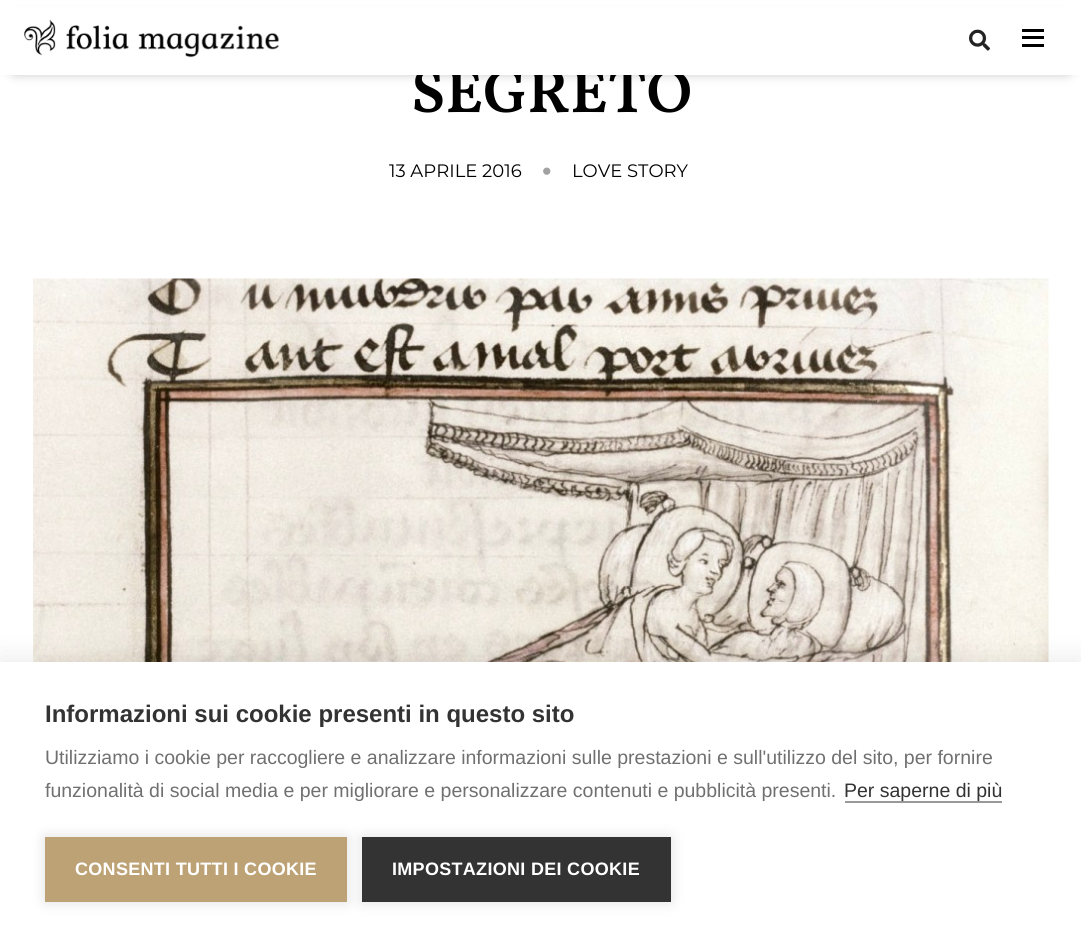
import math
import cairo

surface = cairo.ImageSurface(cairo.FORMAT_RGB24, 1081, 939)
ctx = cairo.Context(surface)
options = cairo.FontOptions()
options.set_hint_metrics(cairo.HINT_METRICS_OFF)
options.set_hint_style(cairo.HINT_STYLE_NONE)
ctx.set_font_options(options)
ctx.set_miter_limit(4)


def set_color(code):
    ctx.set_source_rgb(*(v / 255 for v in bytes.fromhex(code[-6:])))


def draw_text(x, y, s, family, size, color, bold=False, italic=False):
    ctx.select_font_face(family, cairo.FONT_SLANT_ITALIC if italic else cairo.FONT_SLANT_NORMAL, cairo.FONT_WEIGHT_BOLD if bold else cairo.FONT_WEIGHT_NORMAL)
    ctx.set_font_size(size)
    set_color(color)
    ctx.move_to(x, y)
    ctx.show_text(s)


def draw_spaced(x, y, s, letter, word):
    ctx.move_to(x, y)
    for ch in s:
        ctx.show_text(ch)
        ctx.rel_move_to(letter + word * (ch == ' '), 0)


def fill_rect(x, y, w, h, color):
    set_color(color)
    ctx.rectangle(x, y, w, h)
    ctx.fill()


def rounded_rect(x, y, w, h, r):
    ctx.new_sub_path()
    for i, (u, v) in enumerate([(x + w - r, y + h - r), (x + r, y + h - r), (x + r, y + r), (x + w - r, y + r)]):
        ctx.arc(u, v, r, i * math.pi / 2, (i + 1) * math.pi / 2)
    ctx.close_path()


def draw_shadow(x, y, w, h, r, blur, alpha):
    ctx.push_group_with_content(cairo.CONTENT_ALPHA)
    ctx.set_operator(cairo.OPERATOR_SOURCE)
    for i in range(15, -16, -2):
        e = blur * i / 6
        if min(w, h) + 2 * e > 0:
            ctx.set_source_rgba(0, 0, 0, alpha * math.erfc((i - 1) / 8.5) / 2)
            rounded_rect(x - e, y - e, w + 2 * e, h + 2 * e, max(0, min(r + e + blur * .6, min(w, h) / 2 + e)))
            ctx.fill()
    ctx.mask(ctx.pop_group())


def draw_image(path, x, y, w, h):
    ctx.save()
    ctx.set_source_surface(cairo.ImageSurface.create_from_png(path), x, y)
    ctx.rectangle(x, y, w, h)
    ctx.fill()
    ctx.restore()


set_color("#ffffff")
ctx.paint()
set_color("#000000")
draw_shadow(15, 23, 1052, 45, 0, 7.5, 0.6)
draw_text(411, 112, "SEGRETO", "Vollkorn SemiBold", 61.5, "#000000")
fill_rect(0, 7, 1081, 68, "#ffffff")
draw_image("assets/img1.png", 24, 19, 256, 39)
draw_image("assets/img2.png", 969, 29, 21, 22)
fill_rect(1022, 36, 22, 3, "#000000")
fill_rect(1022, 29, 22, 3, "#000000")
fill_rect(1022, 44, 22, 3, "#000000")
draw_text(389, 177, "13 APRILE 2016", "Montserrat", 18, "#000000")
draw_image("assets/img3.png", 543, 167, 8, 8)
draw_text(572, 177, "LOVE STORY", "Montserrat", 18, "#000000")
draw_image("assets/img4.png", 33, 278, 1016, 384)
set_color("#000000")
draw_shadow(0, 662, 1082, 277, 0, 15, 0.1)
fill_rect(0, 662, 1081, 277, "#ffffff")
draw_text(45, 722, "Informazioni sui cookie presenti in questo sito", "Liberation Sans", 24, "#333333", bold=True)
draw_text(45, 764, "Utilizziamo i cookie per raccogliere e analizzare informazioni sulle prestazioni e sull'utilizzo del sito, per fornire", "Liberation Sans", 19.5, "#707070")
draw_text(45, 797, "funzionalità di social media e per migliorare e personalizzare contenuti e pubblicità presenti.", "Liberation Sans", 19.5, "#707070")
fill_rect(845, 801, 157, 2, "#999999")
draw_text(844, 797, "Per saperne di più", "Liberation Sans", 19.5, "#333333")
set_color("#000000")
draw_shadow(45, 837, 302, 65, 0, 7.5, 0.12)
fill_rect(45, 837, 302, 65, "#bda275")
ctx.select_font_face("Liberation Sans", cairo.FONT_SLANT_NORMAL, cairo.FONT_WEIGHT_BOLD)
ctx.set_font_size(18)
set_color("#ffffff")
draw_spaced(75, 875, "CONSENTI TUTTI I COOKIE", 0.3, 0)
set_color("#000000")
draw_shadow(362, 837, 309, 65, 0, 7.5, 0.12)
fill_rect(362, 837, 309, 65, "#333333")
set_color("#ffffff")
draw_spaced(392, 875, "IMPOSTAZIONI DEI COOKIE", 0.3, 0)
surface.write_to_png("output.png")
